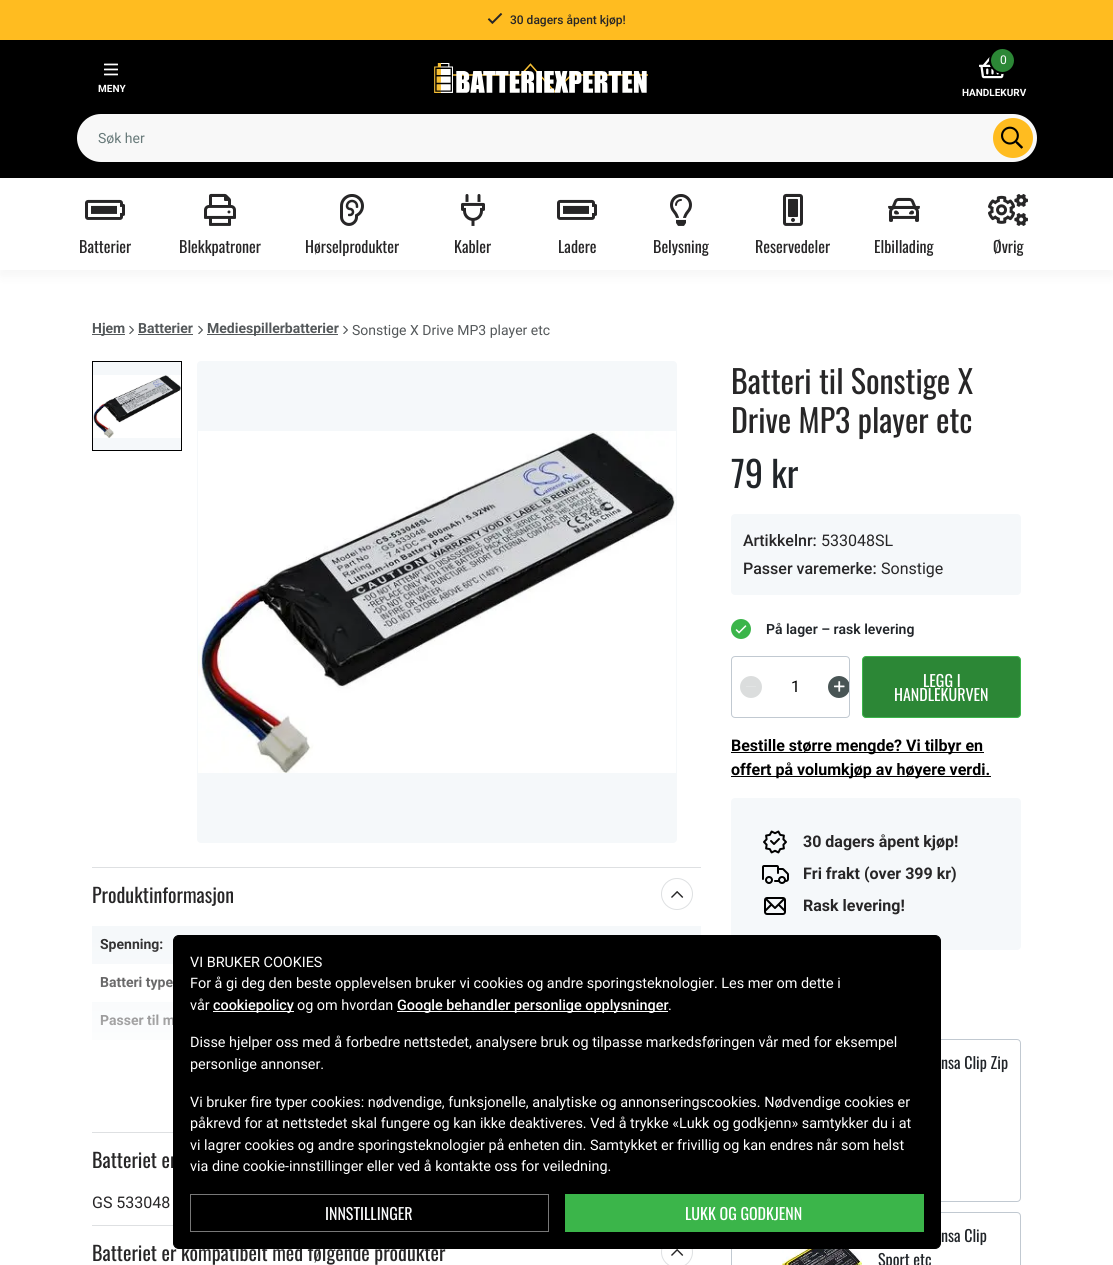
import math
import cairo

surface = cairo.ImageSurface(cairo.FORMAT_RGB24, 1113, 1265)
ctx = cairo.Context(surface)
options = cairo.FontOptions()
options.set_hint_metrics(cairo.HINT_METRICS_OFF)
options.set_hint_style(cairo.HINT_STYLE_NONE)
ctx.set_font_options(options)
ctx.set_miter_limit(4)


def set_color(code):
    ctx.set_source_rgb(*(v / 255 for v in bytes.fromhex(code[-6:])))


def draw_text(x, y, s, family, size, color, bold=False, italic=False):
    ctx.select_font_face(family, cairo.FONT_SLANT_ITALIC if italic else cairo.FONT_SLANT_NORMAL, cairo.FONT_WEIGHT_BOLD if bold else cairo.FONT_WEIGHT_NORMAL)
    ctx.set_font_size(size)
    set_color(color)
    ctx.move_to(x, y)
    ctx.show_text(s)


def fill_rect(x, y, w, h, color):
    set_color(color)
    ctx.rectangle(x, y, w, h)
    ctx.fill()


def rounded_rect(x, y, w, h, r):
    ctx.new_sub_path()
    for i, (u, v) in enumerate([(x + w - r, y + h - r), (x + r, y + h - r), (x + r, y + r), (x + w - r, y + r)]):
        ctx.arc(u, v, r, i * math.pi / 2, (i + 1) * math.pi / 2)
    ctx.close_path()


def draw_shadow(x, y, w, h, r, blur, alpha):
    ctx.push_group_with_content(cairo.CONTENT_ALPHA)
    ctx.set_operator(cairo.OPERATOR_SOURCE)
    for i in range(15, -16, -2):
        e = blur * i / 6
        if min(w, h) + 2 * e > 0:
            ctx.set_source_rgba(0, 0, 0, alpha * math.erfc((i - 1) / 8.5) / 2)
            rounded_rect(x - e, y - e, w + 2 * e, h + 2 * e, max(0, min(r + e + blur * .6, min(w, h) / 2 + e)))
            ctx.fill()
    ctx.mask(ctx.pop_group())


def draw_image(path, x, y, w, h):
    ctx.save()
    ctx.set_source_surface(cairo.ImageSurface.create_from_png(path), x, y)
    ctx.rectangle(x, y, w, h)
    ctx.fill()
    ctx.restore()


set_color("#ffffff")
ctx.paint()
fill_rect(0, 0, 1113, 40, "#ffbc20")
draw_image("assets/img1.png", 487, 13, 16, 11)
draw_text(510, 24, "30 dagers åpent kjøp!", "Roboto Medium", 12, "#272627")
fill_rect(0, 40, 1113, 138, "#000000")
draw_image("assets/img2.png", 104, 63, 14, 13)
draw_text(98, 92, "MENY", "Roboto", 10, "#ffffff", bold=True)
draw_image("assets/img3.png", 434, 63, 214, 30)
draw_image("assets/img4.png", 979, 57, 25, 22)
set_color("#2c8736")
ctx.arc(1002.5, 60.5, 12.5, 0, 2 * math.pi)
ctx.fill_preserve()
set_color("#000000")
ctx.stroke()
draw_text(1000, 64, "0", "Roboto", 12, "#ffffff")
draw_text(962, 96, "HANDLEKURV", "Roboto", 10, "#ffffff", bold=True)
set_color("#f8f8f8")
rounded_rect(77, 114, 960, 48, 24)
ctx.fill()
draw_text(98, 143, "Søk her", "Roboto", 14, "#677979")
set_color("#ffbc20")
ctx.new_path()
ctx.arc(1013, 138, 20, 0, 2 * math.pi)
ctx.fill()
draw_image("assets/img5.png", 1001, 126, 22, 23)
set_color("#000000")
draw_shadow(0, 184, 1113, 92, 0, 6.5, 0.04)
fill_rect(0, 180, 1113, 90, "#ffffff")
draw_image("assets/img6.png", 85, 199, 40, 21)
draw_text(79, 253, "Batterier", "Oswald", 16, "#272627")
draw_image("assets/img7.png", 204, 193, 32, 33)
draw_text(179, 253, "Blekkpatroner", "Oswald", 16, "#272627")
draw_image("assets/img8.png", 340, 194, 24, 32)
draw_text(305, 253, "Hørselprodukter", "Oswald", 16, "#272627")
draw_image("assets/img9.png", 461, 194, 24, 32)
draw_text(454, 253, "Kabler", "Oswald", 16, "#272627")
draw_image("assets/img6.png", 557, 199, 40, 21)
draw_text(558, 253, "Ladere", "Oswald", 16, "#272627")
draw_image("assets/img10.png", 670, 194, 22, 32)
draw_text(653, 253, "Belysning", "Oswald", 16, "#272627")
draw_image("assets/img11.png", 783, 193, 20, 33)
draw_text(755, 253, "Reservedeler", "Oswald", 16, "#272627")
draw_image("assets/img12.png", 888, 197, 32, 25)
draw_text(874, 253, "Elbillading", "Oswald", 16, "#272627")
draw_image("assets/img13.png", 988, 194, 40, 32)
draw_text(993, 253, "Øvrig", "Oswald", 16, "#272627")
fill_rect(92, 334, 33, 1, "#54585a")
draw_text(92, 333, "Hjem", "Roboto", 14, "#54585a", bold=True)
draw_image("assets/img14.png", 129, 325, 5, 9)
draw_text(138, 333, "Batterier", "Roboto", 14, "#54585a", bold=True)
fill_rect(138, 334, 55, 1, "#54585a")
draw_image("assets/img14.png", 198, 325, 5, 9)
fill_rect(207, 334, 131, 1, "#54585a")
draw_text(207, 333, "Mediespillerbatterier", "Roboto", 14, "#54585a", bold=True)
draw_image("assets/img14.png", 343, 325, 5, 9)
draw_text(352, 335, "Sonstige X Drive MP3 player etc", "Roboto", 14, "#54585a")
set_color("#f5f8fa")
ctx.rectangle(92.5, 361.5, 89, 89)
ctx.fill_preserve()
set_color("#000000")
ctx.set_line_width(1)
ctx.stroke()
draw_image("assets/img15.png", 93, 375, 88, 63)
set_color("#f5f8fa")
rounded_rect(197, 361, 480, 482, 4)
ctx.fill()
draw_image("assets/img16.png", 198, 431, 478, 342)
fill_rect(92, 867, 609, 1, "#dee0e2")
fill_rect(92, 1132, 81, 1, "#dee0e2")
draw_text(92, 903, "Produktinformasjon", "Oswald", 20, "#272627")
ctx.new_path()
ctx.arc(677, 894, 15.5, 0, 2 * math.pi)
set_color("#dee0e2")
ctx.stroke()
draw_image("assets/img17.png", 671, 891, 13, 7)
fill_rect(92, 926, 609, 38, "#f5f8fa")
draw_text(100, 949, "Spenning:", "Roboto", 14, "#272627", bold=True)
draw_text(100, 987, "Batteri type", "Roboto", 14, "#272627", bold=True)
fill_rect(92, 1002, 81, 38, "#f5f8fa")
draw_text(100, 1025, "Passer til m", "Roboto", 14, "#272627", bold=True)
gradient = cairo.LinearGradient(397, 936, 397, 1086)
gradient.add_color_stop_rgba(0, 1, 1, 1, 0)
gradient.add_color_stop_rgba(1, 1, 1, 1, 1)
ctx.set_source(gradient)
ctx.rectangle(92, 939, 82, 101)
ctx.fill()
fill_rect(92, 1225, 81, 1, "#dee0e2")
draw_text(92, 1168, "Batteriet er", "Oswald", 20, "#272627")
draw_text(92, 1208, "GS 533048", "Roboto", 16, "#272627")
draw_text(92, 1261, "Batteriet er kompatibelt med følgende produkter", "Oswald", 20, "#272627")
ctx.new_path()
ctx.arc(677, 1252, 15.5, 0, 2 * math.pi)
set_color("#dee0e2")
ctx.stroke()
draw_image("assets/img17.png", 671, 1249, 13, 7)
draw_text(731, 394, "Batteri til Sonstige X", "Oswald", 32, "#272627")
draw_text(731, 433, "Drive MP3 player etc", "Oswald", 32, "#272627")
draw_text(731, 488, "79 kr", "Oswald", 36, "#212529")
set_color("#f5f8fa")
rounded_rect(731, 514, 290, 81, 4)
ctx.fill()
draw_text(743, 546, "Artikkelnr:", "Roboto Medium", 16, "#272627")
draw_text(821, 546, "533048SL", "Roboto", 16, "#272627")
draw_text(743, 574, "Passer varemerke:", "Roboto Medium", 16, "#272627")
draw_text(881, 574, "Sonstige", "Roboto", 16, "#272627")
set_color("#3bb54a")
ctx.new_path()
ctx.arc(741, 629, 10, 0, 2 * math.pi)
ctx.fill()
draw_image("assets/img18.png", 735, 625, 12, 9)
draw_text(766, 634, "På lager – rask levering", "Roboto SemiBold", 14, "#212529")
rounded_rect(731.5, 656.5, 118, 61, 3.5)
set_color("#c1c9d1")
ctx.stroke()
set_color("#dbdddd")
ctx.arc(751, 687, 11, 0, 2 * math.pi)
ctx.fill()
fill_rect(746, 686, 10, 1, "#e2e4e4")
draw_text(791, 692, "1", "Roboto", 16, "#000000")
ctx.save()
rounded_rect(732, 657, 117, 60, 3)
ctx.clip()
set_color("#495555")
ctx.arc(839, 687, 11, 0, 2 * math.pi)
ctx.fill()
ctx.restore()
draw_image("assets/img19.png", 834, 681, 11, 11)
set_color("#2c8736")
rounded_rect(862.5, 656.5, 158, 61, 3.5)
ctx.fill_preserve()
set_color("#3bb54a")
ctx.stroke()
draw_text(923, 687, "LEGG I", "Oswald", 16, "#ffffff")
draw_text(894, 701, "HANDLEKURVEN", "Oswald", 16, "#ffffff")
fill_rect(731, 752, 253, 1, "#000000")
draw_text(731, 751, "Bestille større mengde? Vi tilbyr en", "Roboto", 16, "#000000", bold=True)
fill_rect(731, 776, 260, 1, "#000000")
draw_text(731, 775, "offert på volumkjøp av høyere verdi.", "Roboto", 16, "#000000", bold=True)
set_color("#f5f8fa")
rounded_rect(731, 798, 290, 152, 4)
ctx.fill()
draw_image("assets/img20.png", 763, 830, 24, 24)
draw_text(803, 847, "30 dagers åpent kjøp!", "Roboto", 16, "#272627", bold=True)
draw_image("assets/img21.png", 762, 865, 27, 19)
draw_text(803, 879, "Fri frakt (over 399 kr)", "Roboto", 16, "#272627", bold=True)
draw_image("assets/img22.png", 764, 897, 22, 18)
draw_text(803, 911, "Rask levering!", "Roboto", 16, "#272627", bold=True)
rounded_rect(731.5, 1039.5, 289, 162, 3.5)
set_color("#c1c9d1")
ctx.stroke()
draw_text(941, 1069, "nsa Clip Zip", "Oswald", 16, "#212529")
rounded_rect(731.5, 1212.5, 289, 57, 3.5)
set_color("#c1c9d1")
ctx.stroke()
draw_image("assets/img23.png", 782, 1249, 80, 16)
draw_text(941, 1242, "nsa Clip", "Oswald", 16, "#212529")
draw_text(878, 1266, "Sport etc", "Oswald", 16, "#212529")
set_color("#000000")
rounded_rect(173.5, 935.5, 767, 313, 5.5)
ctx.fill_preserve()
ctx.stroke()
draw_text(190, 967, "VI BRUKER COOKIES", "Roboto", 14.4, "#ffffff")
draw_text(190, 988, "For å gi deg den beste opplevelsen bruker vi cookies og andre sporingsteknologier. Les mer om dette i", "Roboto", 14.4, "#ffffff")
draw_text(190, 1010, "vår", "Roboto", 14.4, "#ffffff")
fill_rect(213, 1011, 81, 1, "#ffffff")
draw_text(213, 1010, "cookiepolicy", "Roboto Medium", 14.4, "#ffffff")
draw_text(297, 1010, "og om hvordan", "Roboto", 14.4, "#ffffff")
fill_rect(397, 1011, 271, 1, "#ffffff")
draw_text(397, 1010, "Google behandler personlige opplysninger", "Roboto Medium", 14.4, "#ffffff")
draw_text(668, 1010, ".", "Roboto", 14.4, "#ffffff")
draw_text(190, 1047, "Disse hjelper oss med å forbedre nettstedet, analysere bruk og tilpasse markedsføringen vår med for eksempel", "Roboto", 14.4, "#ffffff")
draw_text(190, 1069, "personlige annonser.", "Roboto", 14.4, "#ffffff")
draw_text(190, 1107, "Vi bruker fire typer cookies: nødvendige, funksjonelle, analytiske og annonseringscookies. Nødvendige cookies er", "Roboto", 14.4, "#ffffff")
draw_text(190, 1128, "påkrevd for at nettstedet skal fungere og kan ikke deaktiveres. Ved å trykke «Lukk og godkjenn» samtykker du i at", "Roboto", 14.4, "#ffffff")
draw_text(190, 1150, "vi lagrer cookies og andre sporingsteknologier på enheten din. Samtykket er frivillig og kan endres når som helst", "Roboto", 14.4, "#ffffff")
draw_text(190, 1171, "via dine cookie-innstillinger eller ved å kontakte oss for veiledning.", "Roboto", 14.4, "#ffffff")
ctx.rectangle(190.5, 1194.5, 358, 37)
set_color("#787878")
ctx.stroke()
draw_text(325, 1220, "INNSTILLINGER", "Oswald", 16, "#f8f9fa")
fill_rect(565, 1194, 359, 38, "#3bb54a")
draw_text(685, 1220, "LUKK OG GODKJENN", "Oswald", 16, "#ffffff")
surface.write_to_png("output.png")
